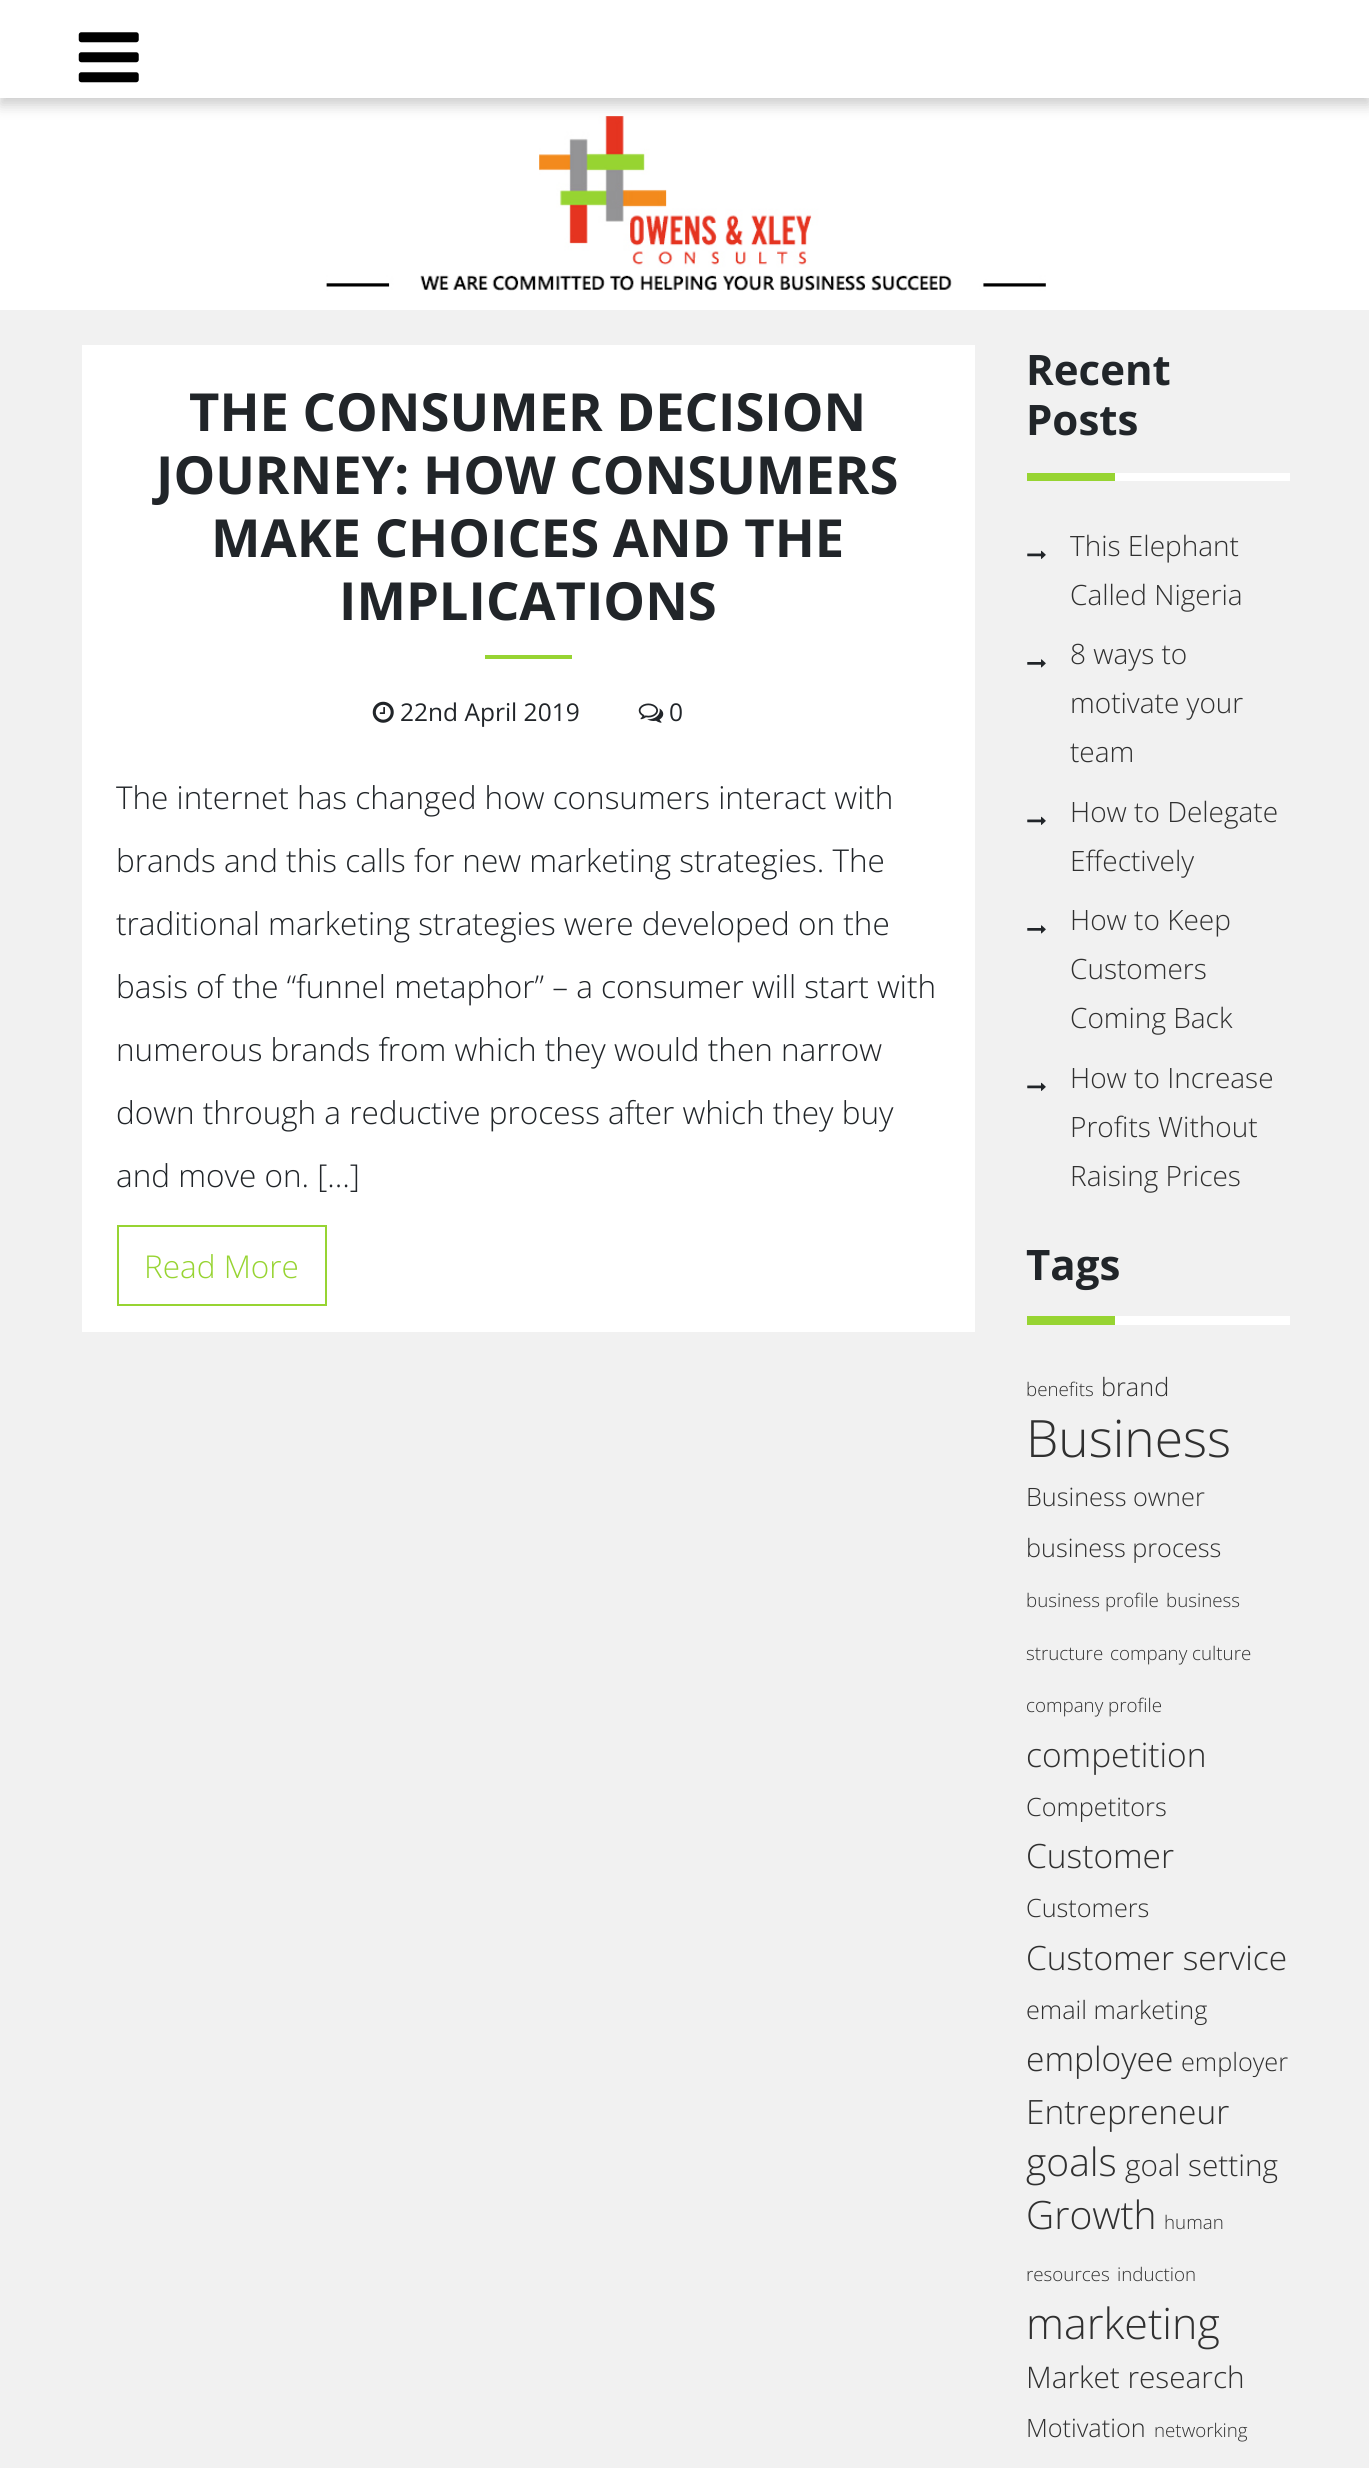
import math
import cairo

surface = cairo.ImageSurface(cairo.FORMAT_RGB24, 1369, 2468)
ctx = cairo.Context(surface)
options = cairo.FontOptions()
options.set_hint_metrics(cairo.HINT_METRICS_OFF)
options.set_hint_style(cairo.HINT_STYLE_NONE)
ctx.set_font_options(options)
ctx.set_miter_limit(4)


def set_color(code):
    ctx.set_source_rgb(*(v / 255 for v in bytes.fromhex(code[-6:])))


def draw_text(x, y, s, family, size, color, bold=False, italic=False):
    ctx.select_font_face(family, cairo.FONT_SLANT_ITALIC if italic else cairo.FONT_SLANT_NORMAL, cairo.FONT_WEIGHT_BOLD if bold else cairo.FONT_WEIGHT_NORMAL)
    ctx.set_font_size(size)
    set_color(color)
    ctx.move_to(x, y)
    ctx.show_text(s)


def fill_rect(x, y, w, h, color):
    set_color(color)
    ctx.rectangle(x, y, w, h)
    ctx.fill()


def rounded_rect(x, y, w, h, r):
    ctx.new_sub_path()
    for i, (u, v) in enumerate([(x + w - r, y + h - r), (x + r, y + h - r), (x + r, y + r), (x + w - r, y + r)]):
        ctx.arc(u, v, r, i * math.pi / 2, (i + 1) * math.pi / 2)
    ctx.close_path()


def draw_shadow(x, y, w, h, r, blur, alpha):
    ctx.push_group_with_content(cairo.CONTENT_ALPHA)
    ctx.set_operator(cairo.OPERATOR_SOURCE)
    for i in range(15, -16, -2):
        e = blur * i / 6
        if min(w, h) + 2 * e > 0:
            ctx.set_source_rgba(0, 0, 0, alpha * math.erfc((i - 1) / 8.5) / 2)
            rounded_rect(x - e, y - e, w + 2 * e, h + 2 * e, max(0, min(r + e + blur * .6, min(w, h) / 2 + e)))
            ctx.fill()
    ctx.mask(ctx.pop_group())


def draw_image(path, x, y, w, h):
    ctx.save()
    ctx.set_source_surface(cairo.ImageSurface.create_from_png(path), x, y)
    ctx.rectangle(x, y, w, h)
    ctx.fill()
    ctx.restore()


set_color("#f1f1f1")
ctx.paint()
fill_rect(0, 98, 1369, 212, "#ffffff")
draw_image("assets/img2.png", 326, 116, 720, 175)
set_color("#000000")
draw_shadow(0, 7, 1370, 98, 0, 7, 0.2)
fill_rect(0, 0, 1369, 98, "#ffffff")
draw_image("assets/img1.png", 78, 32, 61, 51)
fill_rect(82, 345, 893, 987, "#ffffff")
draw_text(189, 431, "THE CONSUMER DECISION", "Open Sans", 52.5, "#212529", bold=True)
draw_text(156, 494, "JOURNEY: HOW CONSUMERS", "Open Sans", 52.5, "#212529", bold=True)
draw_text(211, 557, "MAKE CHOICES AND THE", "Open Sans", 52.5, "#212529", bold=True)
draw_text(339, 620, "IMPLICATIONS", "Open Sans", 52.5, "#212529", bold=True)
fill_rect(485, 655, 87, 4, "#97d432")
draw_image("assets/img3.png", 372, 701, 22, 22)
draw_text(400, 721, "22nd April 2019", "Open Sans", 24.5, "#212529")
draw_image("assets/img4.png", 638, 703, 26, 20)
draw_text(669, 721, "0", "Open Sans", 24.5, "#212529")
draw_text(116, 809, "The internet has changed how consumers interact with", "Open Sans Light", 31.5, "#212529")
draw_text(116, 872, "brands and this calls for new marketing strategies. The", "Open Sans Light", 31.5, "#212529")
draw_text(116, 935, "traditional marketing strategies were developed on the", "Open Sans Light", 31.5, "#212529")
draw_text(116, 998, "basis of the “funnel metaphor” – a consumer will start with", "Open Sans Light", 31.5, "#212529")
draw_text(116, 1061, "numerous brands from which they would then narrow", "Open Sans Light", 31.5, "#212529")
draw_text(116, 1124, "down through a reductive process after which they buy", "Open Sans Light", 31.5, "#212529")
draw_text(116, 1187, "and move on. […]", "Open Sans Light", 31.5, "#212529")
ctx.rectangle(118, 1226, 208, 79)
set_color("#97d432")
ctx.stroke()
draw_text(144, 1278, "Read More", "Open Sans Light", 31.5, "#97d432")
fill_rect(1115, 473, 175, 8, "#ffffff")
draw_text(1026, 385, "Recent", "Open Sans", 42, "#212529", bold=True)
draw_text(1026, 435, "Posts", "Open Sans", 42, "#212529", bold=True)
fill_rect(1027, 473, 88, 8, "#97d432")
draw_image("assets/img5.png", 1027, 550, 19, 9)
draw_text(1070, 556, "This Elephant", "Open Sans Light", 28, "#303030")
draw_text(1070, 605, "Called Nigeria", "Open Sans Light", 28, "#303030")
draw_image("assets/img6.png", 1027, 659, 19, 9)
draw_text(1070, 664, "8 ways to", "Open Sans Light", 28, "#303030")
draw_text(1070, 713, "motivate your", "Open Sans Light", 28, "#303030")
draw_text(1070, 762, "team", "Open Sans Light", 28, "#303030")
draw_image("assets/img5.png", 1027, 816, 19, 9)
draw_text(1070, 822, "How to Delegate", "Open Sans Light", 28, "#303030")
draw_text(1070, 871, "Effectively", "Open Sans Light", 28, "#303030")
draw_image("assets/img6.png", 1027, 925, 19, 9)
draw_text(1070, 930, "How to Keep", "Open Sans Light", 28, "#303030")
draw_text(1070, 979, "Customers", "Open Sans Light", 28, "#303030")
draw_text(1070, 1028, "Coming Back", "Open Sans Light", 28, "#303030")
draw_image("assets/img5.png", 1027, 1082, 19, 9)
draw_text(1070, 1088, "How to Increase", "Open Sans Light", 28, "#303030")
draw_text(1070, 1137, "Profits Without", "Open Sans Light", 28, "#303030")
draw_text(1070, 1186, "Raising Prices", "Open Sans Light", 28, "#303030")
fill_rect(1115, 1316, 175, 9, "#ffffff")
draw_text(1026, 1280, "Tags", "Open Sans", 42, "#212529", bold=True)
fill_rect(1027, 1316, 88, 9, "#97d432")
draw_text(1026, 1396, "benefits", "Open Sans Light", 18.75, "#303030")
draw_text(1101, 1396, "brand", "Open Sans Light", 25.25, "#303030")
draw_text(1026, 1457, "Business", "Open Sans Light", 51.5, "#303030")
draw_text(1026, 1506, "Business owner", "Open Sans Light", 25.25, "#303030")
draw_text(1026, 1557, "business process", "Open Sans Light", 25.25, "#303030")
draw_text(1026, 1607, "business profile", "Open Sans Light", 18.75, "#303030")
draw_text(1166, 1607, "business", "Open Sans Light", 18.75, "#303030")
draw_text(1026, 1660, "structure", "Open Sans Light", 18.75, "#303030")
draw_text(1110, 1660, "company culture", "Open Sans Light", 18.75, "#303030")
draw_text(1026, 1712, "company profile", "Open Sans Light", 18.75, "#303030")
draw_text(1026, 1767, "competition", "Open Sans Light", 33.5, "#303030")
draw_text(1026, 1816, "Competitors", "Open Sans Light", 25.25, "#303030")
draw_text(1026, 1868, "Customer", "Open Sans Light", 33.5, "#303030")
draw_text(1026, 1917, "Customers", "Open Sans Light", 25.25, "#303030")
draw_text(1026, 1970, "Customer service", "Open Sans Light", 33.5, "#303030")
draw_text(1026, 2019, "email marketing", "Open Sans Light", 25.25, "#303030")
draw_text(1026, 2071, "employee", "Open Sans Light", 33.5, "#303030")
draw_text(1181, 2071, "employer", "Open Sans Light", 25.25, "#303030")
draw_text(1026, 2124, "Entrepreneur", "Open Sans Light", 33.5, "#303030")
draw_text(1026, 2176, "goals", "Open Sans Light", 39, "#303030")
draw_text(1125, 2176, "goal setting", "Open Sans Light", 29.75, "#303030")
draw_text(1026, 2229, "Growth", "Open Sans Light", 39, "#303030")
draw_text(1164, 2229, "human", "Open Sans Light", 18.75, "#303030")
draw_text(1026, 2281, "resources", "Open Sans Light", 18.75, "#303030")
draw_text(1117, 2281, "induction", "Open Sans Light", 18.75, "#303030")
draw_text(1026, 2339, "marketing", "Open Sans Light", 43, "#303030")
draw_text(1026, 2388, "Market research", "Open Sans Light", 29.75, "#303030")
draw_text(1026, 2437, "Motivation", "Open Sans Light", 25.25, "#303030")
draw_text(1154, 2437, "networking", "Open Sans Light", 18.75, "#303030")
surface.write_to_png("output.png")
